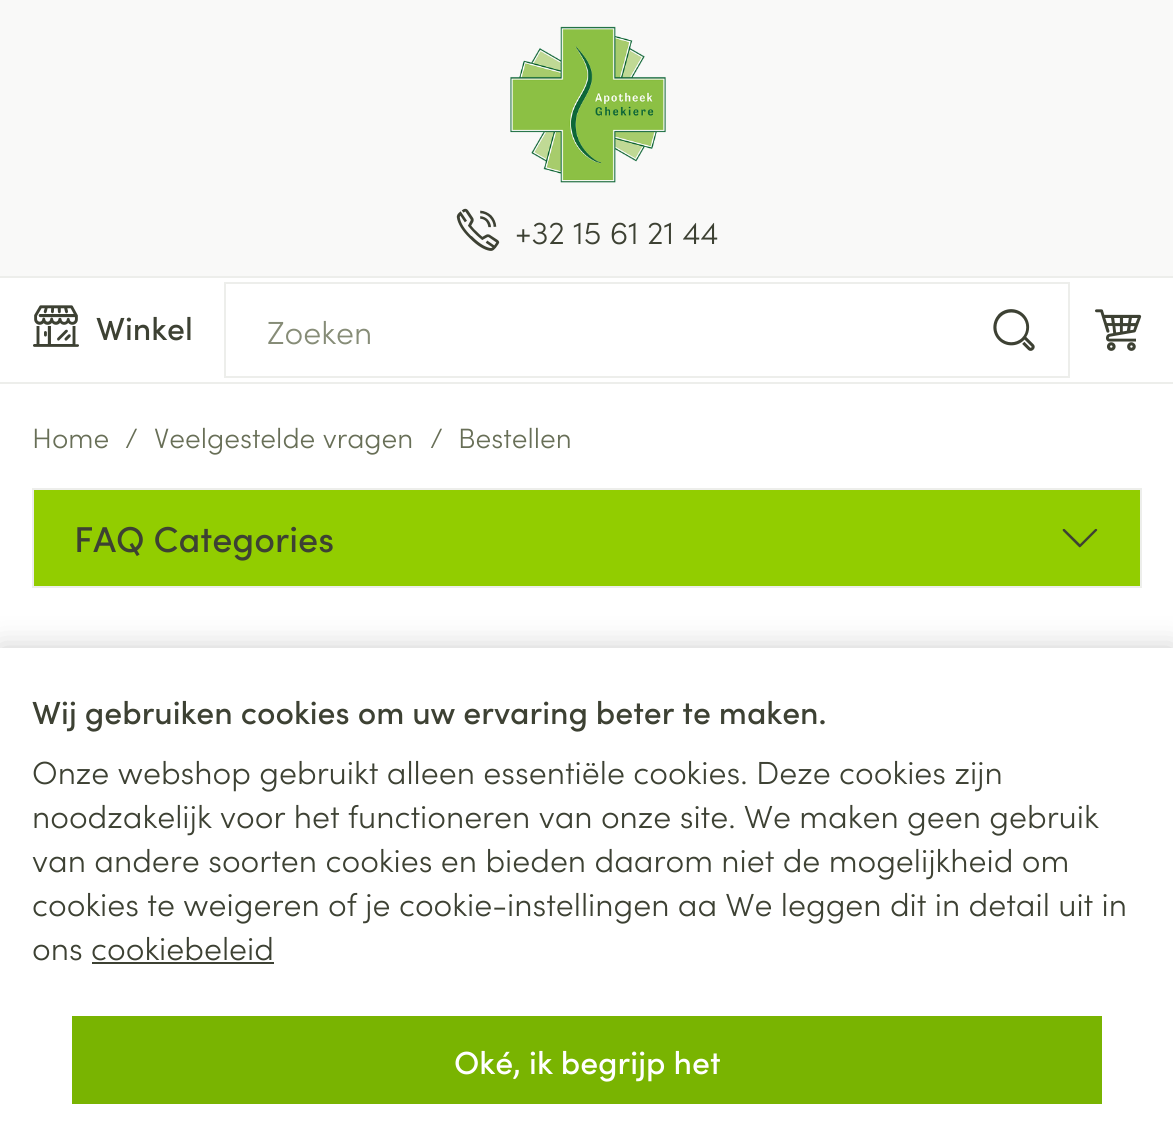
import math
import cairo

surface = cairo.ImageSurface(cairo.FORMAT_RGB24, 1173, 1144)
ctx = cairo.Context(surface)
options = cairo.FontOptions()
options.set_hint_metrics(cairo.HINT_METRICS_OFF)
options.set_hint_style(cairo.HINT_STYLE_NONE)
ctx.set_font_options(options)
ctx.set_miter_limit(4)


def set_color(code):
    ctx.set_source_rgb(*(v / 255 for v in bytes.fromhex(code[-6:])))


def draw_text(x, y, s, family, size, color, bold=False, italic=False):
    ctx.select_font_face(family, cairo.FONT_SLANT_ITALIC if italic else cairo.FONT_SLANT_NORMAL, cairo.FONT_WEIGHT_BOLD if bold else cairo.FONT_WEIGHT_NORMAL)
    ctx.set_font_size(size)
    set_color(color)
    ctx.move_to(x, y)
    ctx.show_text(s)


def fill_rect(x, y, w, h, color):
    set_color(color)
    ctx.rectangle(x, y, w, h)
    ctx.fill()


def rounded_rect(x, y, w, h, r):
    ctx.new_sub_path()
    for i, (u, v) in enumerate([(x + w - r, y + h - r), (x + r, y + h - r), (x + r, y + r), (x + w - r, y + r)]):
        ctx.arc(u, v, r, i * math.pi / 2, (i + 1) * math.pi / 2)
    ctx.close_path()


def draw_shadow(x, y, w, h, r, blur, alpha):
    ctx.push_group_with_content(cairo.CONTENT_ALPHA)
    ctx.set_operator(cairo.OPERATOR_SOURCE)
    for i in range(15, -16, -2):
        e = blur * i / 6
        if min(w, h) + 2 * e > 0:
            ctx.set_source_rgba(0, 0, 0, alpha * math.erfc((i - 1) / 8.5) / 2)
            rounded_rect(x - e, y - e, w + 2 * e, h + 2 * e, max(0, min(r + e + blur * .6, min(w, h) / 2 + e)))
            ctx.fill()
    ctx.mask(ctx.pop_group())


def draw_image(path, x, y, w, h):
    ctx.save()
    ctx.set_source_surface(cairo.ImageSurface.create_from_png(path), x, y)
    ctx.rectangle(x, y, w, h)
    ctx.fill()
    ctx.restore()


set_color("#ffffff")
ctx.paint()
fill_rect(0, 0, 1173, 276, "#f9f9f8")
draw_image("assets/img1.png", 510, 26, 156, 157)
draw_image("assets/img2.png", 456, 208, 44, 43)
draw_text(515, 244, "+32 15 61 21 44", "Sofia Light", 32, "#3d4133")
fill_rect(0, 276, 1173, 2, "#edeeeb")
fill_rect(0, 382, 1173, 2, "#edeeeb")
draw_image("assets/img3.png", 33, 305, 46, 42)
draw_text(96, 340, "Winkel", "Sofia Medium", 32, "#3d4133")
ctx.rectangle(225, 283, 844, 94)
set_color("#edeeeb")
ctx.stroke()
draw_text(267, 344, "Zoeken", "Sofia Light", 32, "#868c77")
draw_image("assets/img4.png", 993, 309, 42, 42)
draw_image("assets/img5.png", 1095, 309, 47, 42)
draw_text(32, 448, "Home", "Sofia Light", 28, "#686f57")
draw_text(125, 448, "/", "Sofia Light", 28, "#686f57")
draw_text(154, 448, "Veelgestelde vragen", "Sofia Light", 28, "#686f57")
draw_text(430, 448, "/", "Sofia Light", 28, "#686f57")
draw_text(458, 448, "Bestellen", "Sofia Light", 28, "#686f57")
set_color("#92cd00")
ctx.rectangle(33, 489, 1108, 98)
ctx.fill_preserve()
set_color("#edeeeb")
ctx.stroke()
draw_text(74, 552, "FAQ Categories", "Sofia Medium", 36, "#3d4133")
draw_image("assets/img6.png", 1062, 528, 36, 20)
set_color("#000000")
draw_shadow(0, 648, 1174, 496, 0, 15, 0.2)
fill_rect(0, 648, 1173, 496, "#ffffff")
draw_text(32, 724, "Wij gebruiken cookies om uw ervaring beter te maken.", "Sofia Medium", 32, "#3d4133")
draw_text(32, 784, "Onze webshop gebruikt alleen essentiële cookies. Deze cookies zijn", "Sofia Light", 32, "#3d4133")
draw_text(32, 828, "noodzakelijk voor het functioneren van onze site. We maken geen gebruik", "Sofia Light", 32, "#3d4133")
draw_text(32, 872, "van andere soorten cookies en bieden daarom niet de mogelijkheid om", "Sofia Light", 32, "#3d4133")
draw_text(32, 916, "cookies te weigeren of je cookie-instellingen aa We leggen dit in detail uit in", "Sofia Light", 32, "#3d4133")
draw_text(32, 960, "ons cookiebeleid", "Sofia Light", 32, "#3d4133")
fill_rect(92, 962, 182, 2, "#3d4133")
fill_rect(72, 1016, 1030, 88, "#79b401")
draw_text(454, 1074, "Oké, ik begrijp het", "Sofia Medium", 32, "#ffffff")
surface.write_to_png("output.png")
